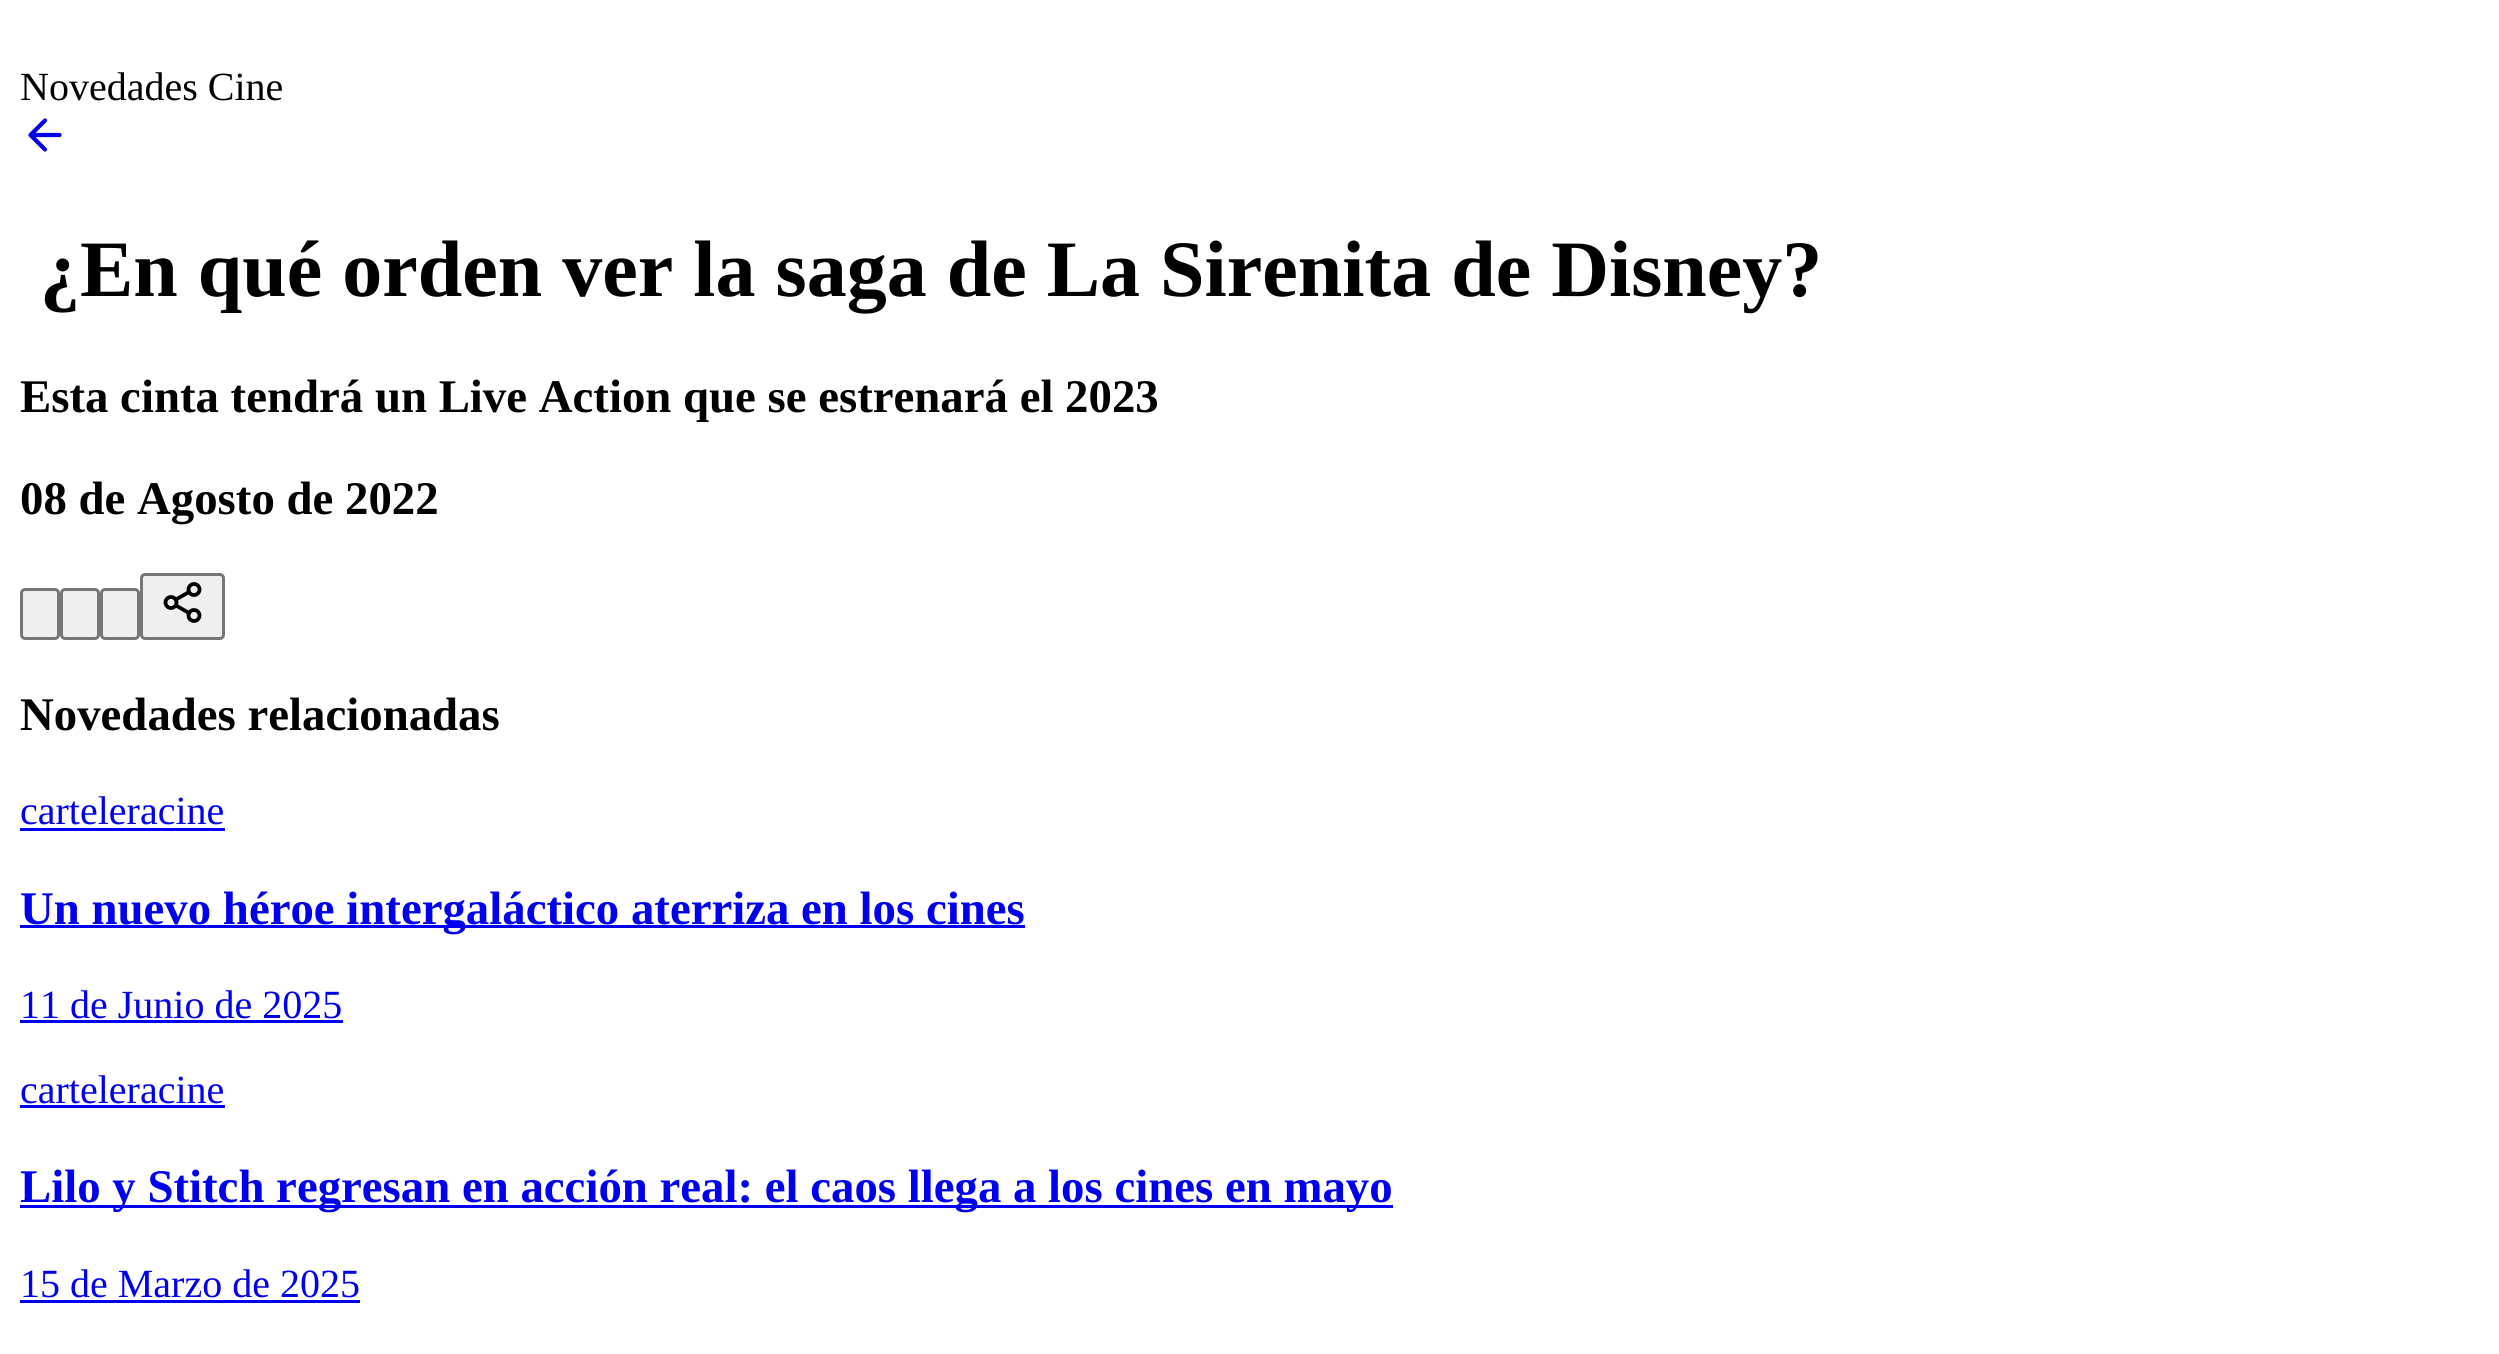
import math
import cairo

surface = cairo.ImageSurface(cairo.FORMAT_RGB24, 2499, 1354)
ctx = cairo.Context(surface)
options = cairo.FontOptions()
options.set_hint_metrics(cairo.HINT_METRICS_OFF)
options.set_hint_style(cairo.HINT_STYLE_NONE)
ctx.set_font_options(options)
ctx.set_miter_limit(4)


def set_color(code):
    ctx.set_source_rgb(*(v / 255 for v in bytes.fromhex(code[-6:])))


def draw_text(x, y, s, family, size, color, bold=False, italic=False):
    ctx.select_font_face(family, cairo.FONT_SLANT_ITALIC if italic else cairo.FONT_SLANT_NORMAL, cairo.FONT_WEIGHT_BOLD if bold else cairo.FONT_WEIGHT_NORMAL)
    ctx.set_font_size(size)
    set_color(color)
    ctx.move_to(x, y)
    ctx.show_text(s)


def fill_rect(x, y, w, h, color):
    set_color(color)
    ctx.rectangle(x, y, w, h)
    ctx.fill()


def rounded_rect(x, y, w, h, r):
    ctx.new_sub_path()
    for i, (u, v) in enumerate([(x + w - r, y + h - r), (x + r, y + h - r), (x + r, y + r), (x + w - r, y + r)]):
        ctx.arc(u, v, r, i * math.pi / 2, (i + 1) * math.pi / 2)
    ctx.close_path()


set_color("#ffffff")
ctx.paint()
draw_text(20, 100, "Novedades Cine", "Liberation Serif", 40, "#000000")
ctx.new_path()
ctx.move_to(59.5, 135)
ctx.line_to(30.5, 135)
ctx.move_to(45, 149.5)
ctx.line_to(30.5, 135)
ctx.line_to(45, 120.5)
set_color("#0000ee")
ctx.set_line_width(4.2)
ctx.set_line_cap(cairo.LINE_CAP_ROUND)
ctx.set_line_join(cairo.LINE_JOIN_ROUND)
ctx.stroke()
draw_text(40, 296, "¿En qué orden ver la saga de La Sirenita de Disney?", "Liberation Serif", 80, "#000000", bold=True)
draw_text(20, 412, "Esta cinta tendrá un Live Action que se estrenará el 2023", "Liberation Serif", 46.8, "#000000", bold=True)
draw_text(20, 514, "08 de Agosto de 2022", "Liberation Serif", 46.8, "#000000", bold=True)
set_color("#efefef")
rounded_rect(21.5, 589.5, 37, 49, 3.5)
ctx.fill_preserve()
set_color("#767676")
ctx.set_line_width(3)
ctx.set_line_cap(cairo.LINE_CAP_BUTT)
ctx.set_line_join(cairo.LINE_JOIN_MITER)
ctx.stroke()
set_color("#efefef")
rounded_rect(61.5, 589.5, 37, 49, 3.5)
ctx.fill_preserve()
set_color("#767676")
ctx.stroke()
set_color("#efefef")
rounded_rect(101.5, 589.5, 37, 49, 3.5)
ctx.fill_preserve()
set_color("#767676")
ctx.stroke()
set_color("#efefef")
rounded_rect(141.5, 574.5, 82, 64, 3.5)
ctx.fill_preserve()
set_color("#767676")
ctx.stroke()
ctx.arc(171, 602.5, 5.5, 0, 2 * math.pi)
set_color("#000000")
ctx.set_line_width(3.8)
ctx.stroke()
ctx.arc(194, 589.5, 5.5, 0, 2 * math.pi)
ctx.stroke()
ctx.arc(194, 615.5, 5.5, 0, 2 * math.pi)
ctx.stroke()
ctx.new_path()
ctx.move_to(176, 605.5)
ctx.line_to(189, 613)
ctx.move_to(189, 592)
ctx.line_to(176, 599.5)
ctx.set_line_cap(cairo.LINE_CAP_ROUND)
ctx.set_line_join(cairo.LINE_JOIN_ROUND)
ctx.stroke()
draw_text(20, 730, "Novedades relacionadas", "Liberation Serif", 46.8, "#000000", bold=True)
draw_text(20, 824, "carteleracine", "Liberation Serif", 40, "#0000ee")
fill_rect(20, 828, 205, 3, "#0000ee")
fill_rect(20, 925, 1005, 3, "#0000ee")
draw_text(20, 924, "Un nuevo héroe intergaláctico aterriza en los cines", "Liberation Serif", 46.8, "#0000ee", bold=True)
draw_text(20, 1018, "11 de Junio de 2025", "Liberation Serif", 40, "#0000ee")
fill_rect(20, 1020, 323, 3, "#0000ee")
draw_text(20, 1103, "carteleracine", "Liberation Serif", 40, "#0000ee")
fill_rect(20, 1105, 205, 3, "#0000ee")
fill_rect(20, 1205, 1373, 3, "#0000ee")
draw_text(20, 1202, "Lilo y Stitch regresan en acción real: el caos llega a los cines en mayo", "Liberation Serif", 46.8, "#0000ee", bold=True)
draw_text(20, 1297, "15 de Marzo de 2025", "Liberation Serif", 40, "#0000ee")
fill_rect(20, 1300, 340, 3, "#0000ee")
surface.write_to_png("output.png")
